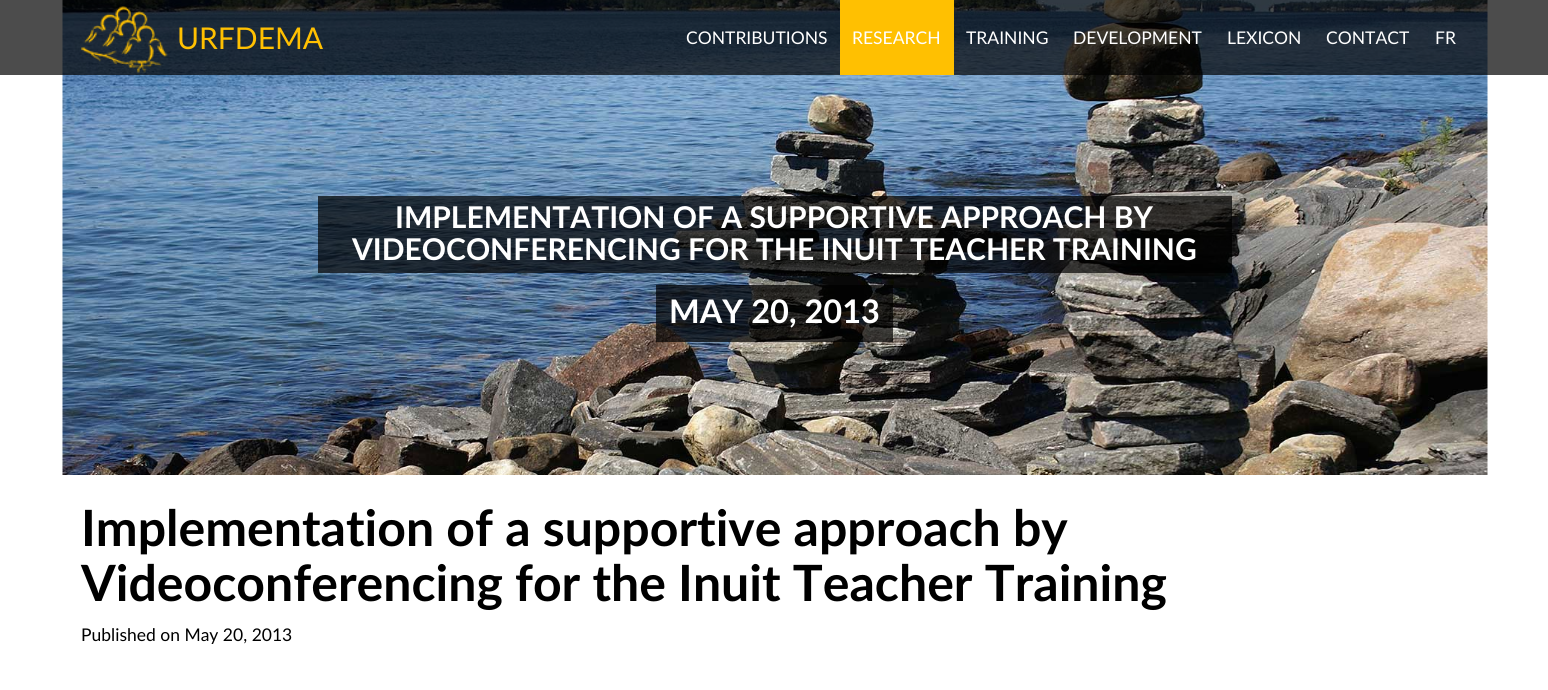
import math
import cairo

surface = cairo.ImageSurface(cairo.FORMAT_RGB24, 1548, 690)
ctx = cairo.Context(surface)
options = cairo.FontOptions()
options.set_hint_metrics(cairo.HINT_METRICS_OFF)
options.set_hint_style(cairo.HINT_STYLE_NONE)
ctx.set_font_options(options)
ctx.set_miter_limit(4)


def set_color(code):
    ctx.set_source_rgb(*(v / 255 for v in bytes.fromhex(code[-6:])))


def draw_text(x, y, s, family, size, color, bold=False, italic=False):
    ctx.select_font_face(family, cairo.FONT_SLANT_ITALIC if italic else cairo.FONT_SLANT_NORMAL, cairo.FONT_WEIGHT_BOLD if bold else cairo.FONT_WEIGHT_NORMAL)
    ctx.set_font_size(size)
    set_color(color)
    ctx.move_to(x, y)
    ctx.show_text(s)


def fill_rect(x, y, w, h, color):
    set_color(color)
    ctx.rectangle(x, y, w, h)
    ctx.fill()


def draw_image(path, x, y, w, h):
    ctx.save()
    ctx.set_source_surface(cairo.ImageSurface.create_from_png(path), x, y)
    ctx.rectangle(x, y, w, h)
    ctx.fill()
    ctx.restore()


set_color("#ffffff")
ctx.paint()
draw_image("assets/img2.png", 62, 0, 1426, 475)
ctx.set_source_rgba(0.004, 0.004, 0.004, 0.7)
ctx.rectangle(0, 0, 1548, 75)
ctx.fill()
draw_image("assets/img1.png", 81, 6, 87, 67)
draw_text(177, 49, "URFDEMA", "Lato", 30, "#ffc001")
draw_text(686, 44, "CONTRIBUTIONS", "Lato", 17.5, "#ffffff")
fill_rect(840, 0, 114, 75, "#ffc001")
draw_text(852, 44, "RESEARCH", "Lato", 17.5, "#ffffff")
draw_text(966, 44, "TRAINING", "Lato", 17.5, "#ffffff")
draw_text(1073, 44, "DEVELOPMENT", "Lato", 17.5, "#ffffff")
draw_text(1227, 44, "LEXICON", "Lato", 17.5, "#ffffff")
draw_text(1326, 44, "CONTACT", "Lato", 17.5, "#ffffff")
draw_text(1435, 44, "FR", "Lato", 17.5, "#ffffff")
ctx.set_source_rgba(0.004, 0.004, 0.004, 0.7)
ctx.rectangle(318, 196, 914, 77)
ctx.fill()
draw_text(395, 228, "IMPLEMENTATION OF A SUPPORTIVE APPROACH BY", "Lato", 30, "#ffffff", bold=True)
draw_text(352, 260, "VIDEOCONFERENCING FOR THE INUIT TEACHER TRAINING", "Lato", 30, "#ffffff", bold=True)
ctx.set_source_rgba(0.004, 0.004, 0.004, 0.7)
ctx.rectangle(656, 285, 237, 57)
ctx.fill()
draw_text(669, 323, "MAY 20, 2013", "Lato", 32.5, "#ffffff", bold=True)
draw_text(81, 546, "Implementation of a supportive approach by", "Lato", 50, "#000000", bold=True)
draw_text(81, 601, "Videoconferencing for the Inuit Teacher Training", "Lato", 50, "#000000", bold=True)
draw_text(81, 641, "Published on May 20, 2013", "Lato", 17.5, "#000000")
surface.write_to_png("output.png")
